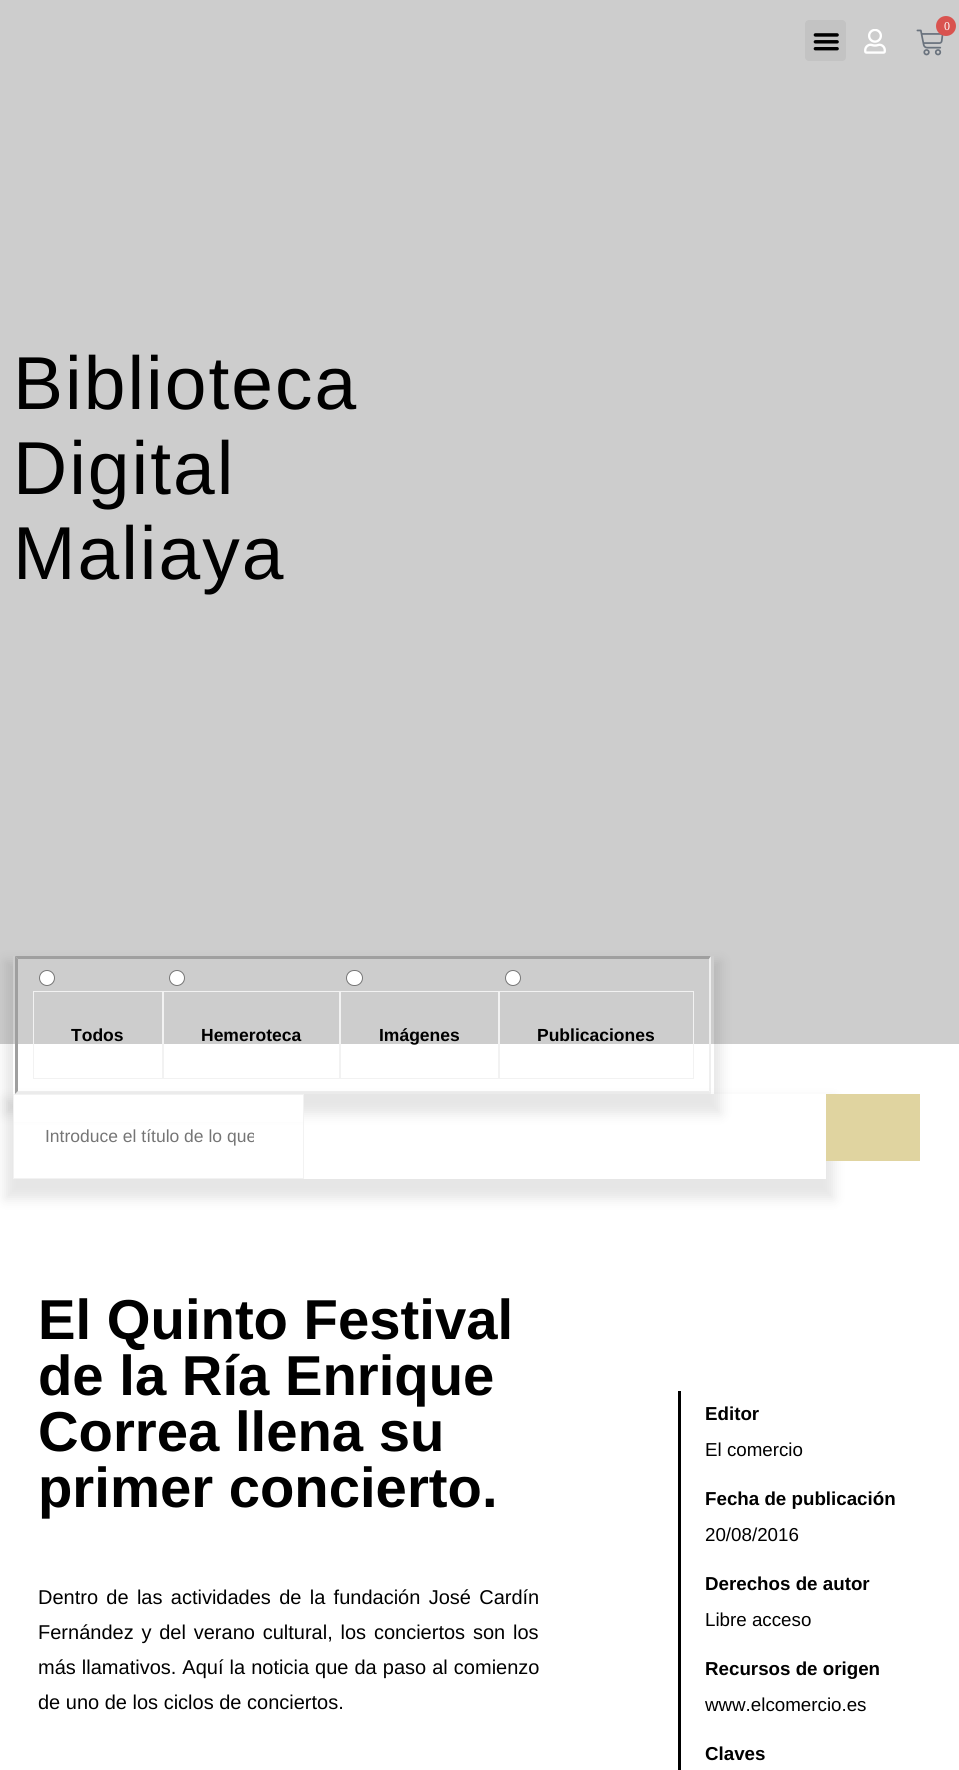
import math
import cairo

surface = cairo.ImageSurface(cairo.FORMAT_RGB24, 959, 1770)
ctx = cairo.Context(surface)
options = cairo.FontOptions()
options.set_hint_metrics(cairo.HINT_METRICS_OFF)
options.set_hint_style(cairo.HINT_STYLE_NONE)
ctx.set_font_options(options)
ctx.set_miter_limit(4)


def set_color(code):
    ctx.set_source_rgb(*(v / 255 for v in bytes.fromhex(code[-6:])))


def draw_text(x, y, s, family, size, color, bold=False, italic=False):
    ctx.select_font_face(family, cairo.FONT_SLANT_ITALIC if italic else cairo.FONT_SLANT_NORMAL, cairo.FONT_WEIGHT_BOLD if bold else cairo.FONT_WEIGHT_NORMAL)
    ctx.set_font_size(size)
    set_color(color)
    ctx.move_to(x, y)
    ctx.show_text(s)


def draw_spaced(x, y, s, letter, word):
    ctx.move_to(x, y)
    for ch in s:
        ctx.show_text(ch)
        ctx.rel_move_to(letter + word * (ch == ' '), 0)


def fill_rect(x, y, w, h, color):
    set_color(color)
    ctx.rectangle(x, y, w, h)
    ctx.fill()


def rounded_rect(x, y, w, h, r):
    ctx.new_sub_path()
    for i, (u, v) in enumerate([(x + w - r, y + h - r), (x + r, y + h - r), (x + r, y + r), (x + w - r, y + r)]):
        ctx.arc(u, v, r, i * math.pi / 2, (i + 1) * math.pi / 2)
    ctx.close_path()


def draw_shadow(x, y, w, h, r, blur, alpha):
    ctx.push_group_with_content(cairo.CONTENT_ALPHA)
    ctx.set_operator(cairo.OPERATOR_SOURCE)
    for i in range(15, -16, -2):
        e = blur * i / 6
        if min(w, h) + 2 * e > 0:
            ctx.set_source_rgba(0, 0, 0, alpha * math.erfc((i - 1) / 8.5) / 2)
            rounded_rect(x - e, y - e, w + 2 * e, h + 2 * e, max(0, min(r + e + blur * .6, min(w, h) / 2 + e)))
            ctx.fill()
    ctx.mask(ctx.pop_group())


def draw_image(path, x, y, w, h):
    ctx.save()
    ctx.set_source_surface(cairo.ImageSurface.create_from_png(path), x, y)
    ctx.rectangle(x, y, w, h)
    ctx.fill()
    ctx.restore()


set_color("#ffffff")
ctx.paint()
fill_rect(0, 0, 959, 1044, "#cdcdcd")
set_color("#c3c3c3")
rounded_rect(805, 20, 41, 41, 4)
ctx.fill()
draw_image("assets/img1.png", 813, 33, 26, 18)
draw_image("assets/img2.png", 916, 29, 28, 27)
set_color("#d9534f")
ctx.arc(946, 26, 10, 0, 2 * math.pi)
ctx.fill()
draw_text(944, 30, "0", "Liberation Serif", 12, "#ffffff")
draw_image("assets/img3.png", 864, 29, 22, 25)
ctx.select_font_face("Liberation Sans")
ctx.set_font_size(75)
set_color("#000000")
draw_spaced(13, 409, "Biblioteca", 2, 0)
draw_spaced(13, 494, "Digital", 2, 0)
draw_spaced(13, 579, "Maliaya", 2, 0)
ctx.save()
ctx.set_fill_rule(cairo.FILL_RULE_EVEN_ODD)
ctx.new_path()
ctx.move_to(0, 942)
ctx.line_to(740, 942)
ctx.line_to(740, 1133)
ctx.line_to(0, 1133)
ctx.close_path()
ctx.move_to(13, 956)
ctx.line_to(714, 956)
ctx.line_to(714, 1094)
ctx.line_to(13, 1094)
ctx.close_path()
ctx.clip()
set_color("#000000")
draw_shadow(5, 961, 716, 153, 0, 6, 0.1)
ctx.restore()
set_color("#9f9f9f")
ctx.new_path()
ctx.move_to(15, 956)
ctx.line_to(711, 956)
ctx.line_to(709, 959)
ctx.line_to(18, 959)
ctx.close_path()
ctx.fill()
set_color("#efefef")
ctx.new_path()
ctx.move_to(711, 956)
ctx.line_to(711, 1094)
ctx.line_to(709, 1091)
ctx.line_to(709, 959)
ctx.close_path()
ctx.fill()
ctx.new_path()
ctx.move_to(711, 1094)
ctx.line_to(15, 1094)
ctx.line_to(18, 1091)
ctx.line_to(709, 1091)
ctx.close_path()
ctx.fill()
set_color("#9f9f9f")
ctx.new_path()
ctx.move_to(15, 1094)
ctx.line_to(15, 956)
ctx.line_to(18, 959)
ctx.line_to(18, 1091)
ctx.close_path()
ctx.fill()
set_color("#ffffff")
ctx.arc(47, 978, 7.5, 0, 2 * math.pi)
ctx.fill_preserve()
set_color("#767676")
ctx.set_line_width(1)
ctx.stroke()
ctx.rectangle(33.5, 991.5, 129, 87)
set_color("#f2f2f2")
ctx.stroke()
draw_text(71, 1041, "Todos", "Liberation Sans", 17.5, "#000000", bold=True)
set_color("#ffffff")
ctx.new_path()
ctx.arc(177, 978, 7.5, 0, 2 * math.pi)
ctx.fill_preserve()
set_color("#767676")
ctx.stroke()
ctx.rectangle(163.5, 991.5, 176, 87)
set_color("#f2f2f2")
ctx.stroke()
draw_text(201, 1041, "Hemeroteca", "Liberation Sans", 17.5, "#000000", bold=True)
set_color("#ffffff")
rounded_rect(346.5, 970.5, 16, 15, 7.5)
ctx.fill_preserve()
set_color("#767676")
ctx.stroke()
ctx.rectangle(340.5, 991.5, 158, 87)
set_color("#f2f2f2")
ctx.stroke()
draw_text(379, 1041, "Imágenes", "Liberation Sans", 17.5, "#000000", bold=True)
set_color("#ffffff")
ctx.new_path()
ctx.arc(513, 978, 7.5, 0, 2 * math.pi)
ctx.fill_preserve()
set_color("#767676")
ctx.stroke()
ctx.rectangle(499.5, 991.5, 194, 87)
set_color("#f2f2f2")
ctx.stroke()
draw_text(537, 1041, "Publicaciones", "Liberation Sans", 17.5, "#000000", bold=True)
ctx.save()
ctx.set_fill_rule(cairo.FILL_RULE_EVEN_ODD)
ctx.new_path()
ctx.move_to(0, 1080)
ctx.line_to(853, 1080)
ctx.line_to(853, 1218)
ctx.line_to(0, 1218)
ctx.close_path()
ctx.move_to(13, 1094)
ctx.line_to(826, 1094)
ctx.line_to(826, 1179)
ctx.line_to(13, 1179)
ctx.close_path()
ctx.clip()
set_color("#000000")
draw_shadow(5, 1099, 829, 100, 0, 6, 0.1)
ctx.restore()
fill_rect(14, 1095, 289, 27, "#ffffff")
ctx.rectangle(13.5, 1094.5, 290, 84)
set_color("#f2f2f2")
ctx.stroke()
ctx.save()
ctx.rectangle(45, 1126, 209, 20)
ctx.clip()
draw_text(45, 1142, "Introduce el título de lo que", "Liberation Sans", 17.5, "#757575")
ctx.restore()
fill_rect(826, 1094, 94, 67, "#e0d4a0")
draw_text(38, 1339, "El Quinto Festival", "Liberation Sans", 56.25, "#000000", bold=True)
draw_text(38, 1395, "de la Ría Enrique", "Liberation Sans", 56.25, "#000000", bold=True)
draw_text(38, 1451, "Correa llena su", "Liberation Sans", 56.25, "#000000", bold=True)
draw_text(38, 1507, "primer concierto.", "Liberation Sans", 56.25, "#000000", bold=True)
ctx.select_font_face("Liberation Sans")
ctx.set_font_size(20)
draw_spaced(38, 1604, "Dentro de las actividades de la fundación José Cardín", 0, 2.75)
draw_spaced(38, 1639, "Fernández y del verano cultural, los conciertos son los", 0, 2.25)
draw_spaced(38, 1674, "más llamativos. Aquí la noticia que da paso al comienzo", 0, 0.5)
draw_text(38, 1709, "de uno de los ciclos de conciertos.", "Liberation Sans", 20, "#000000")
fill_rect(678, 1391, 3, 379, "#000000")
draw_text(705, 1420, "Editor", "Liberation Sans", 18.75, "#000000", bold=True)
draw_text(705, 1456, "El comercio", "Liberation Sans", 18.75, "#000000")
draw_text(705, 1505, "Fecha de publicación", "Liberation Sans", 18.75, "#000000", bold=True)
draw_text(705, 1541, "20/08/2016", "Liberation Sans", 18.75, "#000000")
draw_text(705, 1590, "Derechos de autor", "Liberation Sans", 18.75, "#000000", bold=True)
draw_text(705, 1626, "Libre acceso", "Liberation Sans", 18.75, "#000000")
draw_text(705, 1675, "Recursos de origen", "Liberation Sans", 18.75, "#000000", bold=True)
draw_text(705, 1711, "www.elcomercio.es", "Liberation Sans", 18.75, "#000000")
draw_text(705, 1760, "Claves", "Liberation Sans", 18.75, "#000000", bold=True)
surface.write_to_png("output.png")
